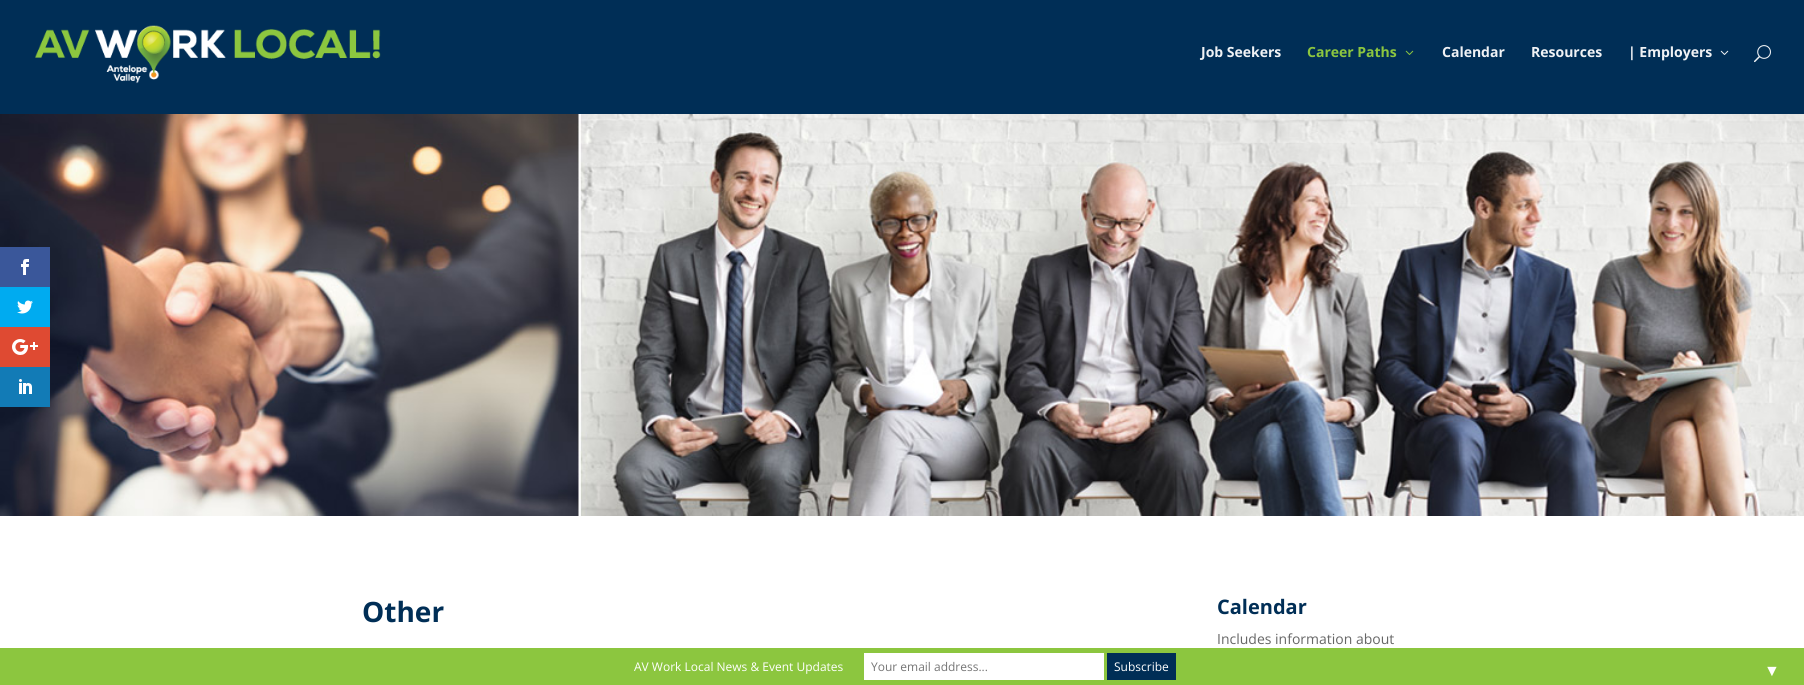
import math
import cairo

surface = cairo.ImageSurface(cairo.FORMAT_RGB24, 1804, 685)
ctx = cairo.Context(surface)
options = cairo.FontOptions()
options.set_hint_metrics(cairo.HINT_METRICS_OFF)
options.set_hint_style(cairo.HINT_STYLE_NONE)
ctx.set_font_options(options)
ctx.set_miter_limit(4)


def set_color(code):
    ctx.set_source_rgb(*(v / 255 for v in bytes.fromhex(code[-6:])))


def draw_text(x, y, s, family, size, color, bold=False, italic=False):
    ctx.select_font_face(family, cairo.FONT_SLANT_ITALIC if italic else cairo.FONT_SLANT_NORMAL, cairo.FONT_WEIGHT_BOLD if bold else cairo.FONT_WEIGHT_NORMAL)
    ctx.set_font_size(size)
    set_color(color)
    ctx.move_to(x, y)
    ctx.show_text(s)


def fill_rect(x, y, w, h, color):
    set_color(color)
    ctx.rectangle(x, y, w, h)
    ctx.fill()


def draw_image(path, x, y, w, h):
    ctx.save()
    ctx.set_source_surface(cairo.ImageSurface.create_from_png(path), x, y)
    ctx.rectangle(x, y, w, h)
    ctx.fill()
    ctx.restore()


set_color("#ffffff")
ctx.paint()
draw_image("assets/img9.png", 0, 114, 1804, 402)
fill_rect(0, 247, 50, 40, "#3a579a")
draw_image("assets/img1.png", 21, 259, 8, 16)
fill_rect(0, 287, 50, 40, "#00abf0")
draw_image("assets/img2.png", 17, 300, 16, 14)
fill_rect(0, 327, 50, 40, "#df4a32")
draw_image("assets/img3.png", 12, 339, 26, 16)
fill_rect(0, 367, 50, 40, "#127bb6")
draw_image("assets/img4.png", 19, 379, 13, 15)
fill_rect(0, 0, 1804, 114, "#002e56")
draw_image("assets/img5.png", 35, 25, 346, 59)
draw_text(1201, 57, "Job Seekers", "Open Sans", 14, "#f0f2f5", bold=True)
draw_text(1307, 57, "Career Paths", "Open Sans", 14, "#8cc63f", bold=True)
draw_image("assets/img6.png", 1405, 50, 9, 5)
draw_text(1442, 57, "Calendar", "Open Sans", 14, "#f0f2f5", bold=True)
draw_text(1531, 57, "Resources", "Open Sans", 14, "#f0f2f5", bold=True)
draw_text(1628, 57, "| Employers", "Open Sans", 14, "#f0f2f5", bold=True)
draw_image("assets/img7.png", 1720, 50, 9, 5)
draw_image("assets/img8.png", 1754, 45, 17, 18)
draw_text(362, 622, "Other", "Open Sans", 28, "#002e56", bold=True)
draw_text(1217, 614, "Calendar", "Open Sans", 20, "#002e56", bold=True)
draw_text(1217, 644, "Includes information about", "Open Sans", 14, "#666666")
fill_rect(0, 648, 1804, 37, "#8cc63f")
draw_text(634, 671, "AV Work Local News & Event Updates", "Open Sans", 12, "#ffffff")
fill_rect(864, 653, 240, 27, "#ffffff")
draw_text(871, 671, "Your email address...", "Open Sans", 12, "#757575")
fill_rect(1107, 653, 69, 27, "#002e56")
draw_text(1114, 671, "Subscribe", "Open Sans", 12, "#ffffff")
draw_text(1764, 676, "▼", "Liberation Sans", 16, "#ffffff")
surface.write_to_png("output.png")
